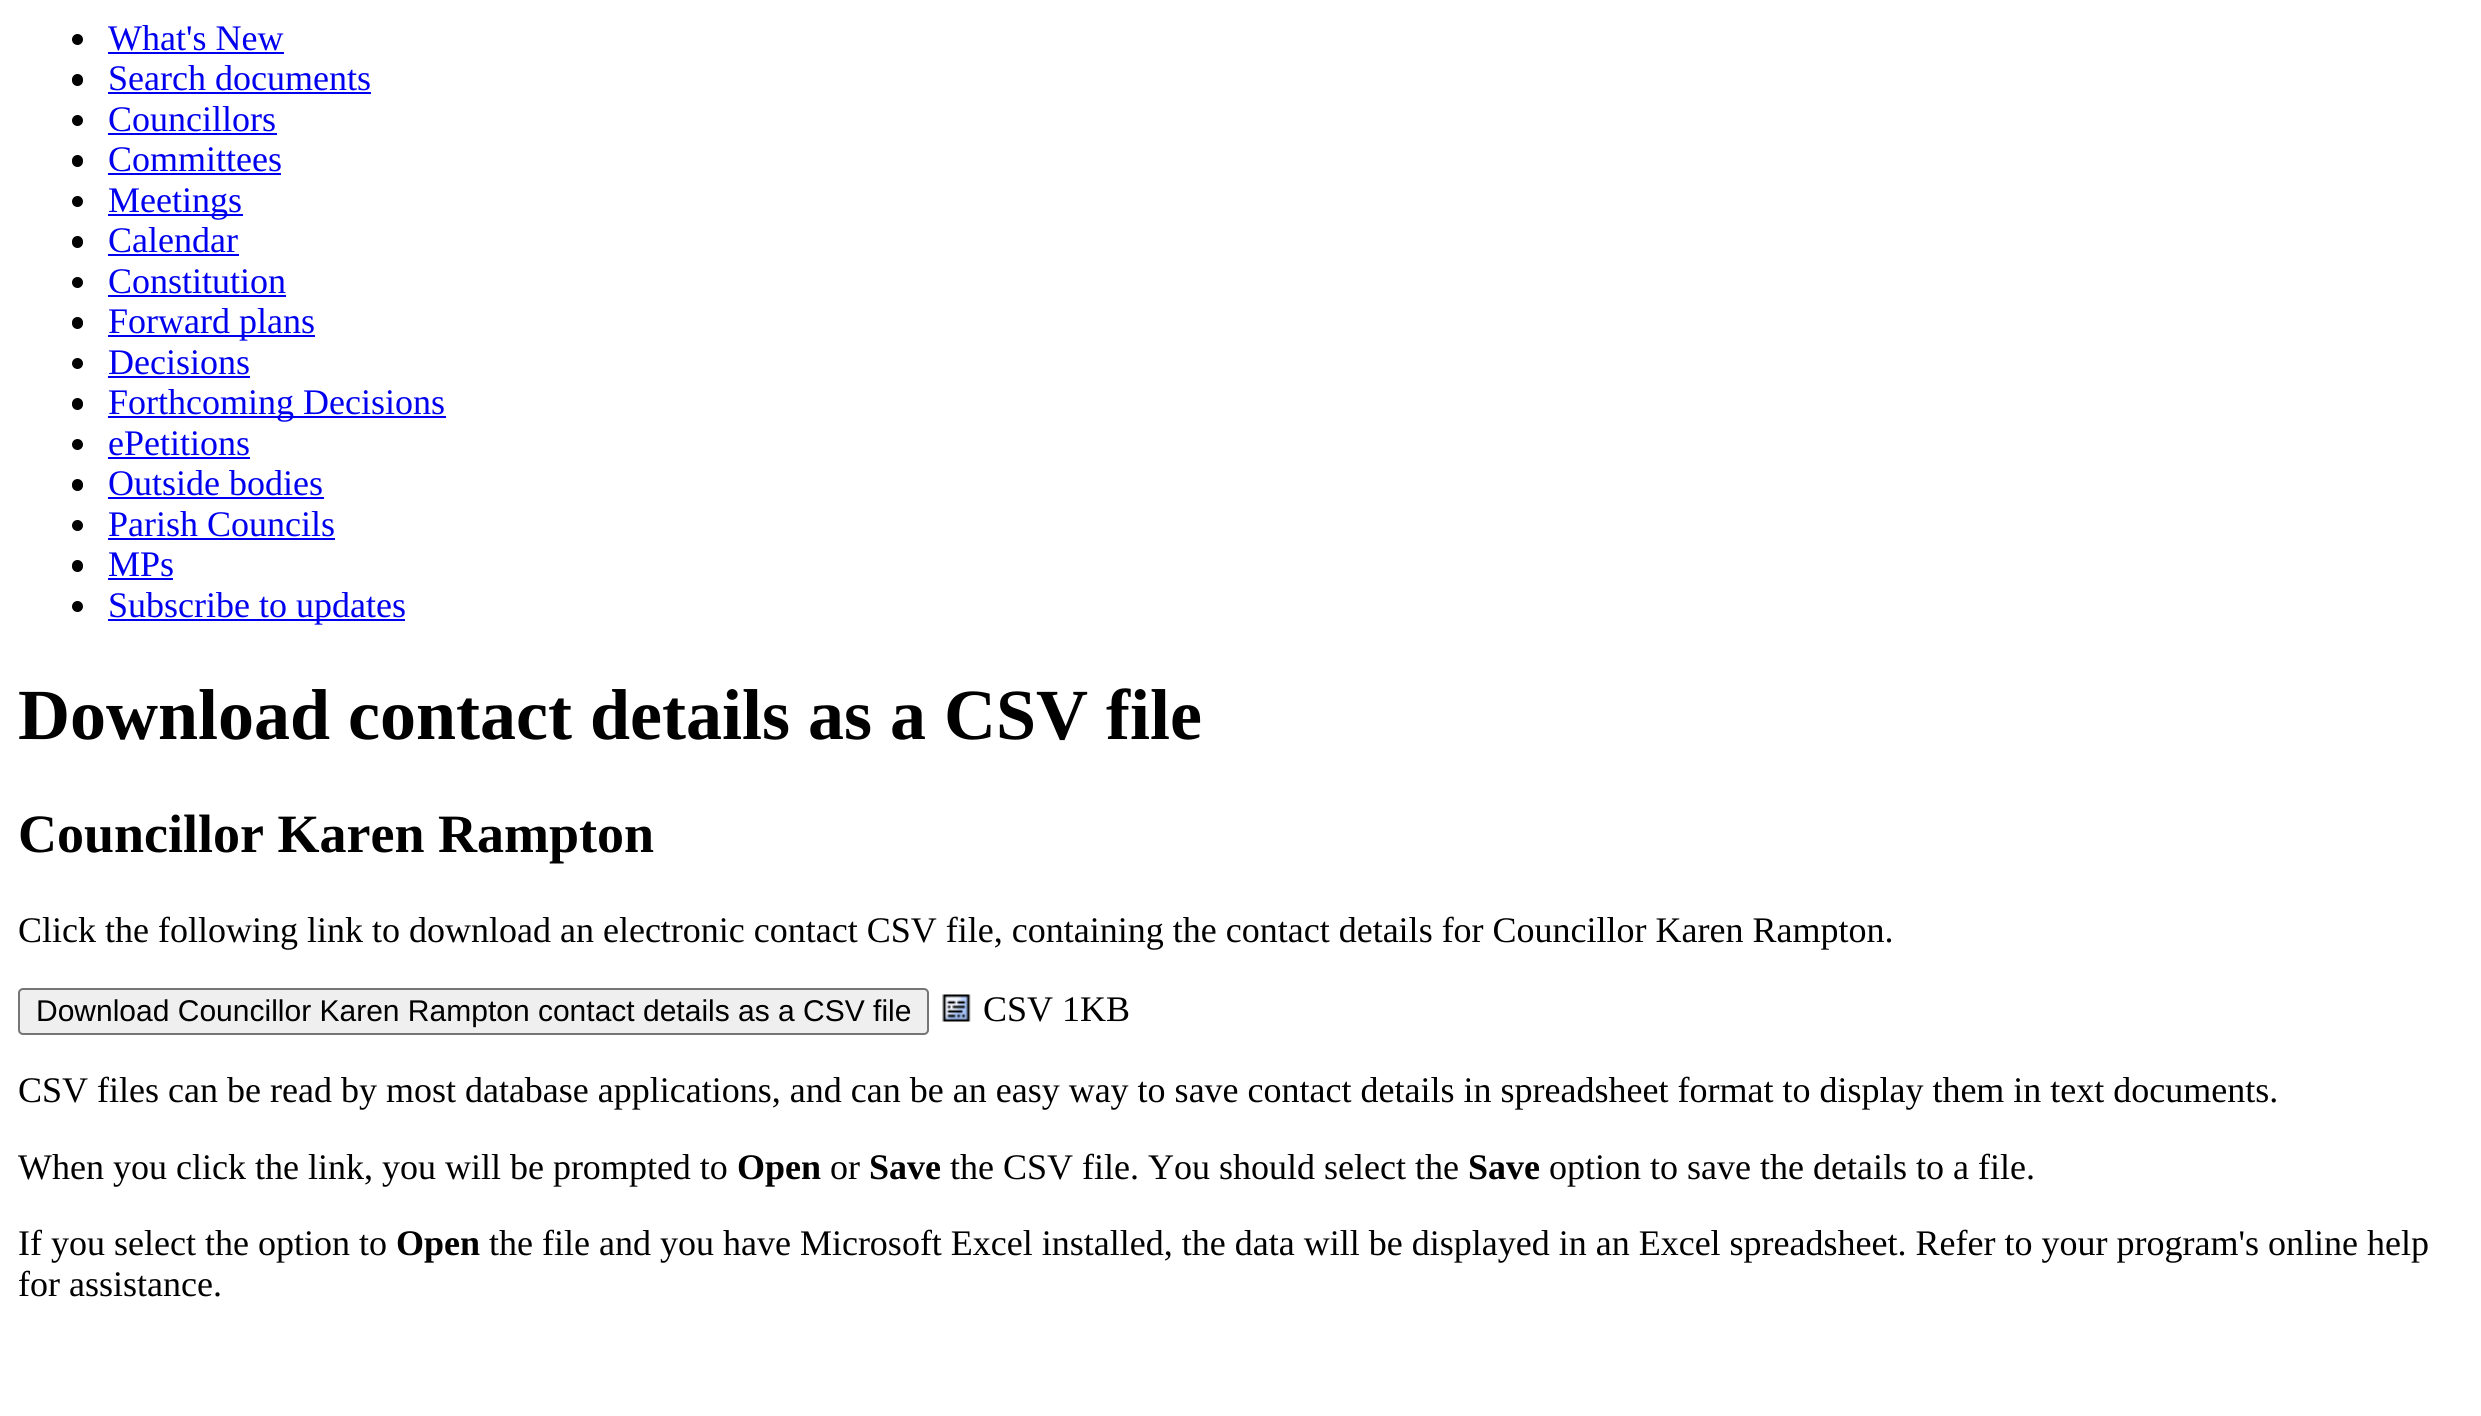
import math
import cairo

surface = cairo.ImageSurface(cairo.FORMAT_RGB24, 2481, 1416)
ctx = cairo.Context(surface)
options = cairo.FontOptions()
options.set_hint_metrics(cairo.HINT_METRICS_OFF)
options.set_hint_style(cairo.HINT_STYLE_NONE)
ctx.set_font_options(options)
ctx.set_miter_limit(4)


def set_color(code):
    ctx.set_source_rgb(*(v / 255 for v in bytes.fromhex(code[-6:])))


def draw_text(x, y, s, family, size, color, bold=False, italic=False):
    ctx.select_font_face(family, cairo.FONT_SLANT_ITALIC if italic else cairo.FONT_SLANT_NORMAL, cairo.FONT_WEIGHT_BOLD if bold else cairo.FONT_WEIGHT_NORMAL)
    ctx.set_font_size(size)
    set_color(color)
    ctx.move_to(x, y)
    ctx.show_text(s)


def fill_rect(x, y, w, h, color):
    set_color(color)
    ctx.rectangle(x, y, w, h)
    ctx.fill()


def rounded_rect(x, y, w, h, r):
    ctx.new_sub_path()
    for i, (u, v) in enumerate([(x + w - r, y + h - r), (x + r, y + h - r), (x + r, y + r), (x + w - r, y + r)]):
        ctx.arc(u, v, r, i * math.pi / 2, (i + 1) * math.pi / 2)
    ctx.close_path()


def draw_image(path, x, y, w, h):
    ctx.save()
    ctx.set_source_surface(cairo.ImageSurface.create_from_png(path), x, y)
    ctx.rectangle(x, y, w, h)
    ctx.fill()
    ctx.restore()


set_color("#ffffff")
ctx.paint()
set_color("#000000")
ctx.arc(77.5, 39.5, 5.5, 0, 2 * math.pi)
ctx.fill()
draw_text(108, 50, "What's New", "Liberation Serif", 36, "#0000ee")
fill_rect(108, 52, 176, 2, "#0000ee")
set_color("#000000")
rounded_rect(72, 74, 11, 12, 5.5)
ctx.fill()
draw_text(108, 90, "Search documents", "Liberation Serif", 36, "#0000ee")
fill_rect(108, 92, 263, 2, "#0000ee")
set_color("#000000")
ctx.new_path()
ctx.arc(77.5, 120.5, 5.5, 0, 2 * math.pi)
ctx.fill()
draw_text(108, 131, "Councillors", "Liberation Serif", 36, "#0000ee")
fill_rect(108, 133, 169, 2, "#0000ee")
set_color("#000000")
rounded_rect(72, 155, 11, 12, 5.5)
ctx.fill()
draw_text(108, 171, "Committees", "Liberation Serif", 36, "#0000ee")
fill_rect(108, 173, 173, 2, "#0000ee")
set_color("#000000")
ctx.new_path()
ctx.arc(77.5, 201.5, 5.5, 0, 2 * math.pi)
ctx.fill()
fill_rect(108, 214, 135, 2, "#0000ee")
draw_text(108, 212, "Meetings", "Liberation Serif", 36, "#0000ee")
set_color("#000000")
rounded_rect(72, 236, 11, 12, 5.5)
ctx.fill()
draw_text(108, 252, "Calendar", "Liberation Serif", 36, "#0000ee")
fill_rect(108, 254, 131, 2, "#0000ee")
set_color("#000000")
ctx.new_path()
ctx.arc(77.5, 282.5, 5.5, 0, 2 * math.pi)
ctx.fill()
draw_text(108, 293, "Constitution", "Liberation Serif", 36, "#0000ee")
fill_rect(108, 295, 178, 2, "#0000ee")
set_color("#000000")
rounded_rect(72, 317, 11, 12, 5.5)
ctx.fill()
fill_rect(108, 335, 207, 2, "#0000ee")
draw_text(108, 333, "Forward plans", "Liberation Serif", 36, "#0000ee")
set_color("#000000")
ctx.new_path()
ctx.arc(77.5, 363.5, 5.5, 0, 2 * math.pi)
ctx.fill()
draw_text(108, 374, "Decisions", "Liberation Serif", 36, "#0000ee")
fill_rect(108, 376, 142, 2, "#0000ee")
set_color("#000000")
rounded_rect(72, 398, 11, 12, 5.5)
ctx.fill()
fill_rect(108, 416, 338, 2, "#0000ee")
draw_text(108, 414, "Forthcoming Decisions", "Liberation Serif", 36, "#0000ee")
set_color("#000000")
ctx.new_path()
ctx.arc(77.5, 444.5, 5.5, 0, 2 * math.pi)
ctx.fill()
draw_text(108, 455, "ePetitions", "Liberation Serif", 36, "#0000ee")
fill_rect(108, 457, 142, 2, "#0000ee")
set_color("#000000")
rounded_rect(72, 479, 11, 12, 5.5)
ctx.fill()
draw_text(108, 495, "Outside bodies", "Liberation Serif", 36, "#0000ee")
fill_rect(108, 497, 216, 2, "#0000ee")
set_color("#000000")
ctx.new_path()
ctx.arc(77.5, 525.5, 5.5, 0, 2 * math.pi)
ctx.fill()
draw_text(108, 536, "Parish Councils", "Liberation Serif", 36, "#0000ee")
fill_rect(108, 538, 227, 2, "#0000ee")
set_color("#000000")
rounded_rect(72, 560, 11, 12, 5.5)
ctx.fill()
draw_text(108, 576, "MPs", "Liberation Serif", 36, "#0000ee")
fill_rect(108, 578, 65, 2, "#0000ee")
set_color("#000000")
ctx.new_path()
ctx.arc(77.5, 606.5, 5.5, 0, 2 * math.pi)
ctx.fill()
fill_rect(108, 619, 297, 2, "#0000ee")
draw_text(108, 617, "Subscribe to updates", "Liberation Serif", 36, "#0000ee")
draw_text(18, 739, "Download contact details as a CSV file", "Liberation Serif", 72, "#000000", bold=True)
draw_text(18, 852, "Councillor Karen Rampton", "Liberation Serif", 54, "#000000", bold=True)
draw_text(18, 942, "Click the following link to download an electronic contact CSV file, containing the contact details for Councillor Karen Rampton.", "Liberation Serif", 36, "#000000")
set_color("#efefef")
rounded_rect(19, 989, 909, 45, 4)
ctx.fill_preserve()
set_color("#767676")
ctx.stroke()
draw_text(36, 1021, "Download Councillor Karen Rampton contact details as a CSV file", "Liberation Sans", 30, "#000000")
draw_image("assets/img1.png", 942, 994, 29, 28)
draw_text(983, 1021, "CSV 1KB", "Liberation Serif", 36, "#000000")
draw_text(18, 1102, "CSV files can be read by most database applications, and can be an easy way to save contact details in spreadsheet format to display them in text documents.", "Liberation Serif", 36, "#000000")
draw_text(18, 1179, "When you click the link, you will be prompted to", "Liberation Serif", 36, "#000000")
draw_text(737, 1179, "Open", "Liberation Serif", 36, "#000000", bold=True)
draw_text(830, 1179, "or", "Liberation Serif", 36, "#000000")
draw_text(869, 1179, "Save", "Liberation Serif", 36, "#000000", bold=True)
draw_text(950, 1179, "the CSV file. You should select the", "Liberation Serif", 36, "#000000")
draw_text(1468, 1179, "Save", "Liberation Serif", 36, "#000000", bold=True)
draw_text(1549, 1179, "option to save the details to a file.", "Liberation Serif", 36, "#000000")
draw_text(18, 1255, "If you select the option to", "Liberation Serif", 36, "#000000")
draw_text(396, 1255, "Open", "Liberation Serif", 36, "#000000", bold=True)
draw_text(489, 1255, "the file and you have Microsoft Excel installed, the data will be displayed in an Excel spreadsheet. Refer to your program's online help", "Liberation Serif", 36, "#000000")
draw_text(18, 1296, "for assistance.", "Liberation Serif", 36, "#000000")
surface.write_to_png("output.png")
